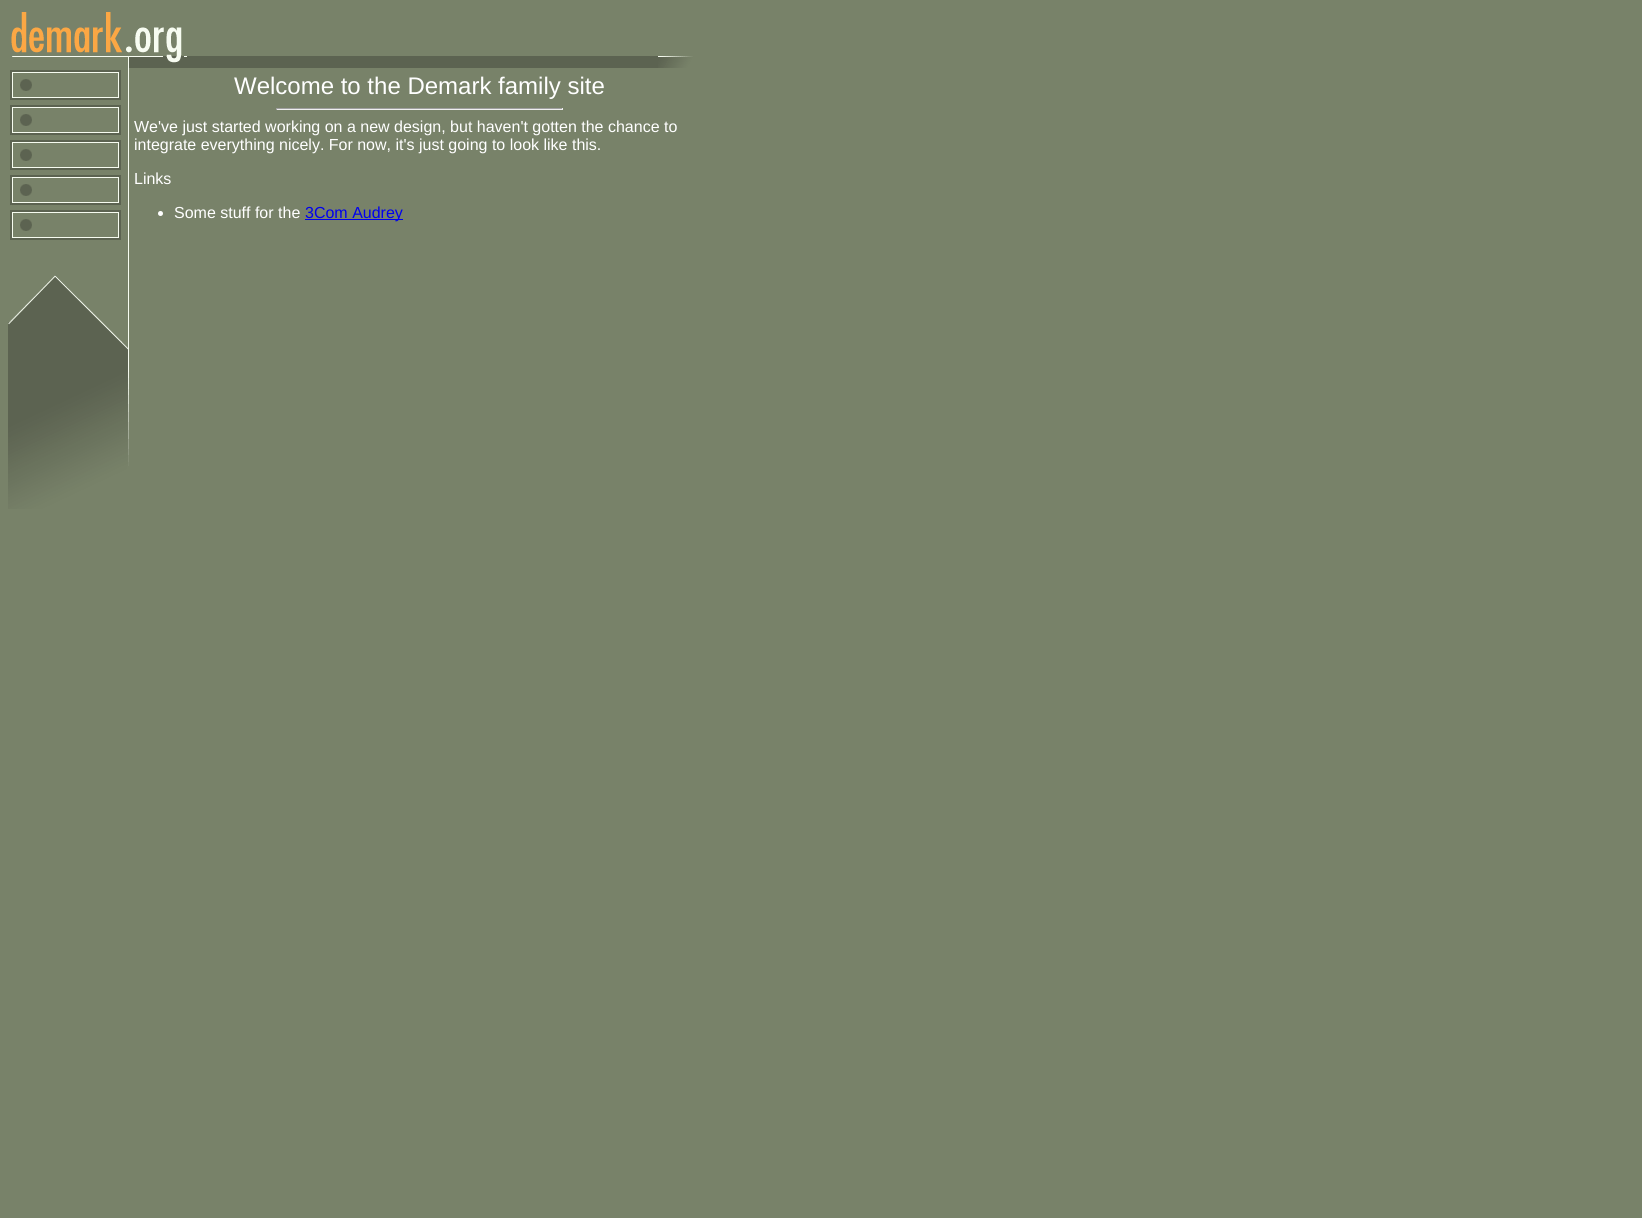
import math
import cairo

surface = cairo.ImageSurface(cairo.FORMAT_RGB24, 1642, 1218)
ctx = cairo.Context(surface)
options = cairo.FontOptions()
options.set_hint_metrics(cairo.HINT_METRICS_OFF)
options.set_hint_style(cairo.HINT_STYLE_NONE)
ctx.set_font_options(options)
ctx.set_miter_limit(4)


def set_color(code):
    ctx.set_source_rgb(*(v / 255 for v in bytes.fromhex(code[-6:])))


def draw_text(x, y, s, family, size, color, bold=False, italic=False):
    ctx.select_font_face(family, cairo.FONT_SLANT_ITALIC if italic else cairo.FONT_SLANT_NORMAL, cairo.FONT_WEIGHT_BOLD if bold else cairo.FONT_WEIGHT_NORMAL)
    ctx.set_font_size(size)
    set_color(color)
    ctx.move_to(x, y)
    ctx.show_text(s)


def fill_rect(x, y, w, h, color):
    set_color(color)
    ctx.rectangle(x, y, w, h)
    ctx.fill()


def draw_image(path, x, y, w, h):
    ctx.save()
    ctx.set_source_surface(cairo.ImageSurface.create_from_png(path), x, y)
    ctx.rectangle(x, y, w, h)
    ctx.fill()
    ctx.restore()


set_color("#788269")
ctx.paint()
draw_image("assets/img1.png", 11, 12, 116, 45)
draw_image("assets/img2.png", 127, 27, 60, 41)
fill_rect(187, 56, 471, 12, "#5c6351")
draw_image("assets/img3.png", 658, 56, 35, 12)
draw_image("assets/img4.png", 10, 70, 111, 30)
draw_image("assets/img4.png", 10, 105, 111, 30)
draw_image("assets/img4.png", 10, 140, 111, 30)
draw_image("assets/img4.png", 10, 175, 111, 30)
draw_image("assets/img4.png", 10, 210, 111, 30)
draw_image("assets/img5.png", 8, 275, 119, 234)
fill_rect(128, 68, 1, 200, "#f7fcf1")
draw_text(234, 94, "Welcome to the Demark family site", "Liberation Sans", 24, "#ffffff")
fill_rect(276, 108, 287, 1, "#9f9f9f")
fill_rect(562, 108, 1, 2, "#eeeeee")
fill_rect(276, 109, 287, 1, "#eeeeee")
fill_rect(276, 108, 1, 2, "#9f9f9f")
draw_text(134, 132, "We've just started working on a new design, but haven't gotten the chance to", "Liberation Sans", 16, "#ffffff")
draw_text(134, 150, "integrate everything nicely. For now, it's just going to look like this.", "Liberation Sans", 16, "#ffffff")
draw_text(134, 184, "Links", "Liberation Sans", 16, "#ffffff")
ctx.new_path()
ctx.arc(160.5, 213.5, 2.5, 0, 2 * math.pi)
ctx.fill()
draw_text(174, 218, "Some stuff for the", "Liberation Sans", 16, "#ffffff")
fill_rect(305, 219, 98, 1, "#0000ee")
draw_text(305, 218, "3Com Audrey", "Liberation Sans", 16, "#0000ee")
draw_image("assets/img6.png", 127, 268, 2, 198)
surface.write_to_png("output.png")
